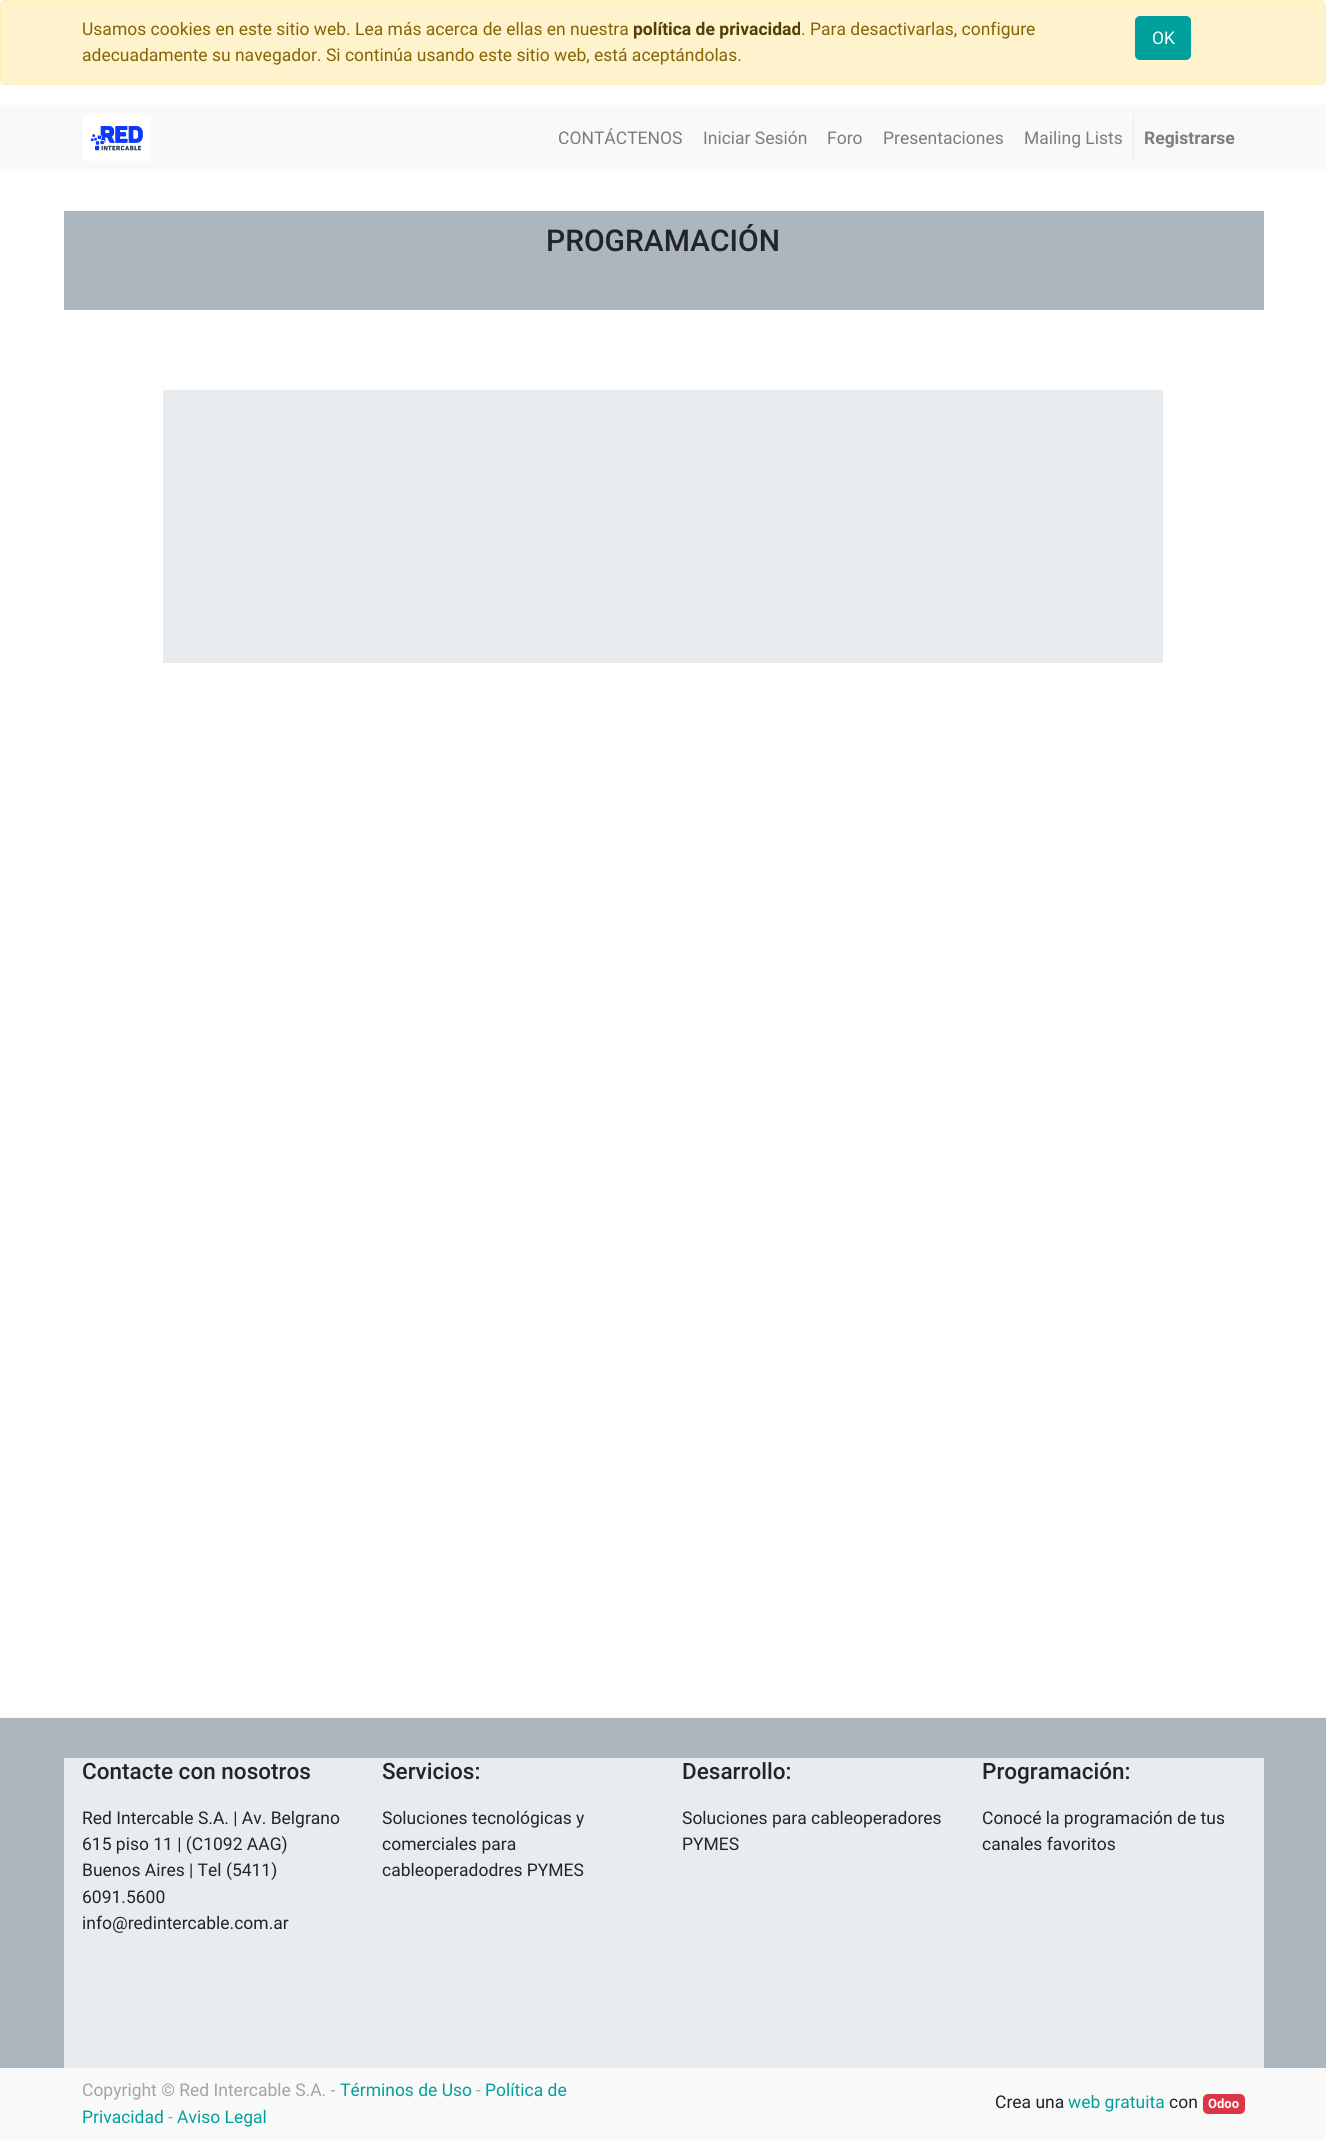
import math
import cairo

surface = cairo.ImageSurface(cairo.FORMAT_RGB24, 1326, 2140)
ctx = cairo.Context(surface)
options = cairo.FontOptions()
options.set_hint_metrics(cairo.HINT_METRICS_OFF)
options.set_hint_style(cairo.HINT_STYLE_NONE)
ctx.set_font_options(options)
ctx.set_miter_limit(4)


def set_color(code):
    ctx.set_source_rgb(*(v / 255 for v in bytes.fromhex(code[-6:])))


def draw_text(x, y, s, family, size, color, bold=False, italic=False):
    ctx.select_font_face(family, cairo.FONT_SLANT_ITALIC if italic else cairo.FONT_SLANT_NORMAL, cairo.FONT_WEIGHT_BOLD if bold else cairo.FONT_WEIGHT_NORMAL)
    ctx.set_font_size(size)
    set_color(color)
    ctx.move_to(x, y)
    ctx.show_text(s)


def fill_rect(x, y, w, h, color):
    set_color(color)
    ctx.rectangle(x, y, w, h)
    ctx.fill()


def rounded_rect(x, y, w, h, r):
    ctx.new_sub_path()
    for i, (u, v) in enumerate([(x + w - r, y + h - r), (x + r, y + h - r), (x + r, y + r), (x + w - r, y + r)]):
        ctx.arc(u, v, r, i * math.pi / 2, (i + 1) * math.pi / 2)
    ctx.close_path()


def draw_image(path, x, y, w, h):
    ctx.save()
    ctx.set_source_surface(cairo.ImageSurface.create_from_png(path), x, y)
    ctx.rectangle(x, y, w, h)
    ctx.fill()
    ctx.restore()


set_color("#ffffff")
ctx.paint()
set_color("#fff3cd")
rounded_rect(0.5, 0.5, 1325, 84, 4.5)
ctx.fill_preserve()
set_color("#ffeeba")
ctx.set_line_width(1)
ctx.stroke()
draw_text(82, 35, "Usamos cookies en este sitio web. Lea más acerca de ellas en nuestra", "Roboto", 17.5, "#856404")
draw_text(633, 35, "política de privacidad", "Roboto", 17.5, "#533f03", bold=True)
draw_text(801, 35, ". Para desactivarlas, configure", "Roboto", 17.5, "#856404")
draw_text(82, 61, "adecuadamente su navegador. Si continúa usando este sitio web, está aceptándolas.", "Roboto", 17.5, "#856404")
set_color("#00a09d")
rounded_rect(1135.5, 16.5, 55, 43, 4.5)
ctx.fill_preserve()
ctx.stroke()
draw_text(1152, 44, "OK", "Roboto", 17.5, "#ffffff")
fill_rect(0, 105, 1326, 66, "#f9f9f9")
draw_image("assets/img1.png", 83, 115, 68, 46)
draw_text(558, 144, "CONTÁCTENOS", "Roboto", 17.5, "#7d7d7d")
draw_text(703, 144, "Iniciar Sesión", "Roboto", 17.5, "#7d7d7d")
draw_text(827, 144, "Foro", "Roboto", 17.5, "#7d7d7d")
draw_text(883, 144, "Presentaciones", "Roboto", 17.5, "#7d7d7d")
draw_text(1024, 144, "Mailing Lists", "Roboto", 17.5, "#7d7d7d")
fill_rect(1133, 115, 1, 46, "#e9ecef")
draw_text(1144, 144, "Registrarse", "Roboto", 17.5, "#7d7d7d", bold=True)
fill_rect(64, 211, 1200, 99, "#adb5bd")
draw_text(546, 251, "PROGRAMACIÓN", "Roboto Medium", 30, "#212529")
fill_rect(163, 390, 1000, 273, "#e9ecef")
fill_rect(0, 1716, 1326, 424, "#f9f9f9")
fill_rect(0, 1718, 1326, 350, "#adb5bd")
fill_rect(64, 1758, 1200, 310, "#e9ecef")
draw_text(82, 1779, "Contacte con nosotros", "Roboto Medium", 22.5, "#212529")
draw_text(82, 1824, "Red Intercable S.A. | Av. Belgrano", "Roboto", 17.5, "#212529")
draw_text(82, 1850, "615 piso 11 | (C1092 AAG)", "Roboto", 17.5, "#212529")
draw_text(82, 1876, "Buenos Aires | Tel (5411)", "Roboto", 17.5, "#212529")
draw_text(82, 1903, "6091.5600", "Roboto", 17.5, "#212529")
draw_text(82, 1929, "info@redintercable.com.ar", "Roboto", 17.5, "#212529")
draw_text(382, 1779, "Servicios:", "Roboto Medium", 22.5, "#212529")
draw_text(382, 1824, "Soluciones tecnológicas y", "Roboto", 17.5, "#212529")
draw_text(382, 1850, "comerciales para", "Roboto", 17.5, "#212529")
draw_text(382, 1876, "cableoperadodres PYMES", "Roboto", 17.5, "#212529")
draw_text(682, 1779, "Desarrollo:", "Roboto Medium", 22.5, "#212529")
draw_text(682, 1824, "Soluciones para cableoperadores", "Roboto", 17.5, "#212529")
draw_text(682, 1850, "PYMES", "Roboto", 17.5, "#212529")
draw_text(982, 1779, "Programación:", "Roboto Medium", 22.5, "#212529")
draw_text(982, 1824, "Conocé la programación de tus", "Roboto", 17.5, "#212529")
draw_text(982, 1850, "canales favoritos", "Roboto", 17.5, "#212529")
draw_text(82, 2096, "Copyright © Red Intercable S.A. -", "Roboto", 17.5, "#a3a4a6")
draw_text(340, 2096, "Términos de Uso", "Roboto", 17.5, "#00a09d")
draw_text(476, 2096, "-", "Roboto", 17.5, "#a3a4a6")
draw_text(485, 2096, "Política de", "Roboto", 17.5, "#00a09d")
draw_text(82, 2123, "Privacidad", "Roboto", 17.5, "#00a09d")
draw_text(168, 2123, "-", "Roboto", 17.5, "#a3a4a6")
draw_text(177, 2123, "Aviso Legal", "Roboto", 17.5, "#00a09d")
draw_text(995, 2108, "Crea una", "Roboto", 17.5, "#212529")
draw_text(1068, 2108, "web gratuita", "Roboto", 17.5, "#00a09d")
draw_text(1169, 2108, "con", "Roboto", 17.5, "#212529")
set_color("#dc3545")
rounded_rect(1203, 2094, 42, 20, 5)
ctx.fill()
draw_text(1208, 2108, "Odoo", "Roboto", 13, "#ffffff", bold=True)
surface.write_to_png("output.png")
